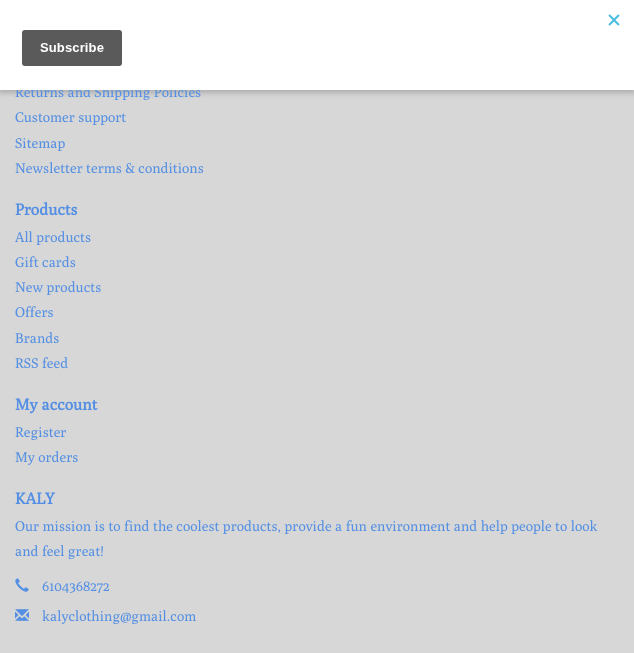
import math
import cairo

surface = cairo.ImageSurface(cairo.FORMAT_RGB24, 634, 653)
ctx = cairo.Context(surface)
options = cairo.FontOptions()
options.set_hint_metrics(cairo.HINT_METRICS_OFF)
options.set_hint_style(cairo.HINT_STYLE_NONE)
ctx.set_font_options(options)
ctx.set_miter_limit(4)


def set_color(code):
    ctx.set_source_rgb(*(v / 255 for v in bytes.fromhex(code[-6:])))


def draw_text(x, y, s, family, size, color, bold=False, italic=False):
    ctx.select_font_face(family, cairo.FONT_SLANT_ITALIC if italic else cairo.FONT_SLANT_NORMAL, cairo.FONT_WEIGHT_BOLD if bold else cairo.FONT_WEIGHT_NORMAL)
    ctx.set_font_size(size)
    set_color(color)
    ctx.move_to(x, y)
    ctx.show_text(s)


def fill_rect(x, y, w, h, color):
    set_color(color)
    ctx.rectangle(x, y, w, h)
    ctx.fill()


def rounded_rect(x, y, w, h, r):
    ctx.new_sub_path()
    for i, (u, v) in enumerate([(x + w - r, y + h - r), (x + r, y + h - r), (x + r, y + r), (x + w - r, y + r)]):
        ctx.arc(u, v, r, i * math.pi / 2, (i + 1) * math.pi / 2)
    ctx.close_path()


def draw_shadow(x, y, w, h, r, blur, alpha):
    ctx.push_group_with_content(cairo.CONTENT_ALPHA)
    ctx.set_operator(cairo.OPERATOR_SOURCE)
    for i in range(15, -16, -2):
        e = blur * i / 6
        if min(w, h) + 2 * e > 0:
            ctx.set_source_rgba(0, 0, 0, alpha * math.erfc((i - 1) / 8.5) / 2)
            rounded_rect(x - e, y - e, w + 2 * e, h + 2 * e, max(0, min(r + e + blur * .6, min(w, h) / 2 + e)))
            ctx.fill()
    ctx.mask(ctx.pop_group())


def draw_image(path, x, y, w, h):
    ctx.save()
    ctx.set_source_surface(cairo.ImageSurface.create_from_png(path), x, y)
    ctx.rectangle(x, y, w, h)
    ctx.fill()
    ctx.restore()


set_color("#d7d7d7")
ctx.paint()
set_color("#000000")
draw_shadow(0, 3, 634, 90, 0, 3, 0.2)
draw_text(15, 97, "Returns and Shipping Policies", "Poly", 14, "#548fe3")
fill_rect(0, 0, 634, 90, "#ffffff")
draw_image("assets/img1.png", 22, 14, 598, 52)
draw_text(15, 122, "Customer support", "Poly", 14, "#548fe3")
draw_text(15, 148, "Sitemap", "Poly", 14, "#548fe3")
draw_text(15, 173, "Newsletter terms & conditions", "Poly", 14, "#548fe3")
draw_text(15, 215, "Products", "Poly", 16, "#548fe3", bold=True)
draw_text(15, 242, "All products", "Poly", 14, "#548fe3")
draw_text(15, 267, "Gift cards", "Poly", 14, "#548fe3")
draw_text(15, 292, "New products", "Poly", 14, "#548fe3")
draw_text(15, 317, "Offers", "Poly", 14, "#548fe3")
draw_text(15, 343, "Brands", "Poly", 14, "#548fe3")
draw_text(15, 368, "RSS feed", "Poly", 14, "#548fe3")
draw_text(15, 410, "My account", "Poly", 16, "#548fe3", bold=True)
draw_text(15, 437, "Register", "Poly", 14, "#548fe3")
draw_text(15, 462, "My orders", "Poly", 14, "#548fe3")
draw_text(15, 504, "KALY", "Poly", 16, "#548fe3", bold=True)
draw_text(15, 531, "Our mission is to find the coolest products, provide a fun environment and help people to look", "Poly", 14, "#548fe3")
draw_text(15, 556, "and feel great!", "Poly", 14, "#548fe3")
draw_image("assets/img2.png", 15, 578, 14, 14)
draw_text(42, 591, "6104368272", "Poly", 14, "#548fe3")
draw_image("assets/img3.png", 15, 609, 14, 12)
draw_text(42, 621, "kalyclothing@gmail.com", "Poly", 14, "#548fe3")
surface.write_to_png("output.png")
